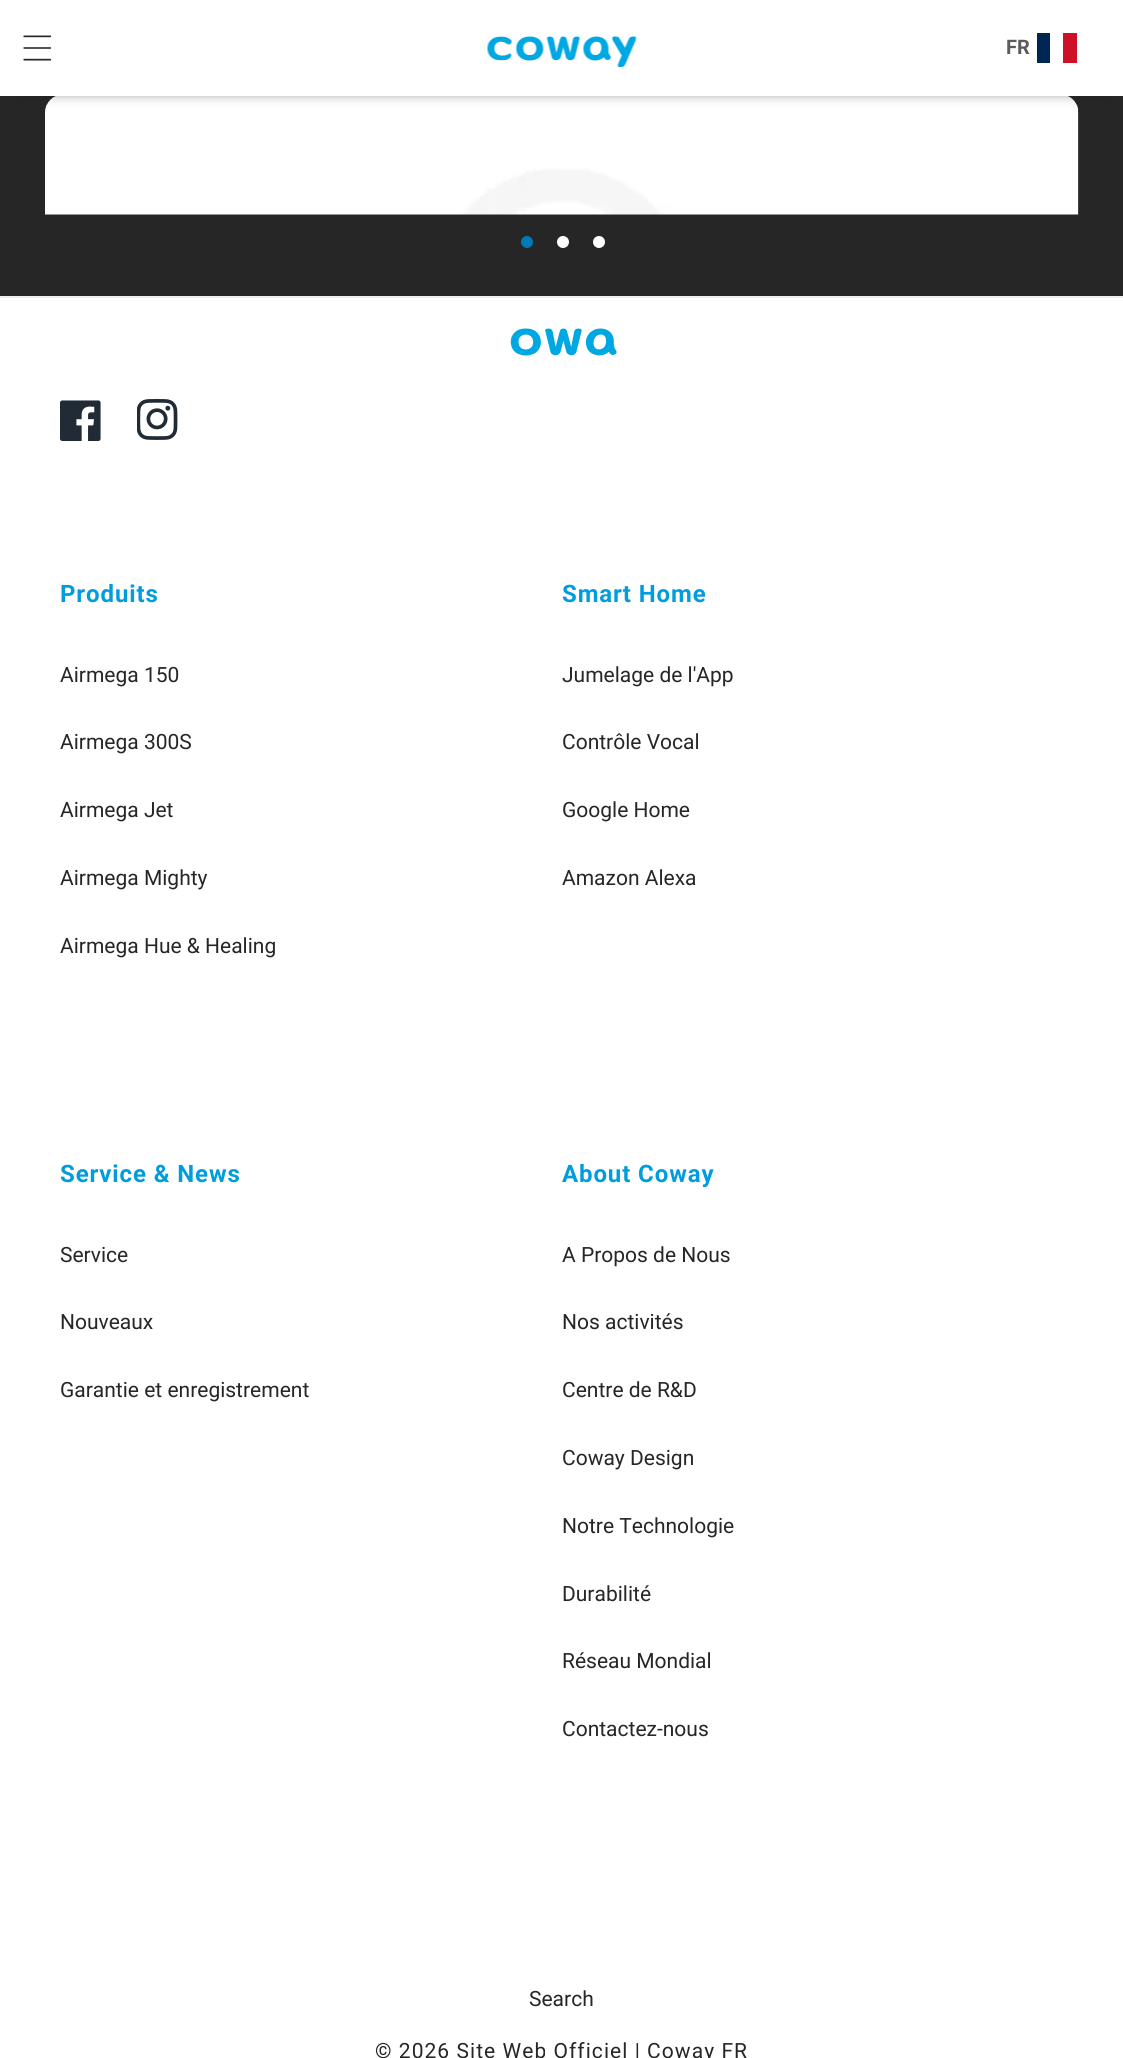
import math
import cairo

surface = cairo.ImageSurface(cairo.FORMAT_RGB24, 1123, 2058)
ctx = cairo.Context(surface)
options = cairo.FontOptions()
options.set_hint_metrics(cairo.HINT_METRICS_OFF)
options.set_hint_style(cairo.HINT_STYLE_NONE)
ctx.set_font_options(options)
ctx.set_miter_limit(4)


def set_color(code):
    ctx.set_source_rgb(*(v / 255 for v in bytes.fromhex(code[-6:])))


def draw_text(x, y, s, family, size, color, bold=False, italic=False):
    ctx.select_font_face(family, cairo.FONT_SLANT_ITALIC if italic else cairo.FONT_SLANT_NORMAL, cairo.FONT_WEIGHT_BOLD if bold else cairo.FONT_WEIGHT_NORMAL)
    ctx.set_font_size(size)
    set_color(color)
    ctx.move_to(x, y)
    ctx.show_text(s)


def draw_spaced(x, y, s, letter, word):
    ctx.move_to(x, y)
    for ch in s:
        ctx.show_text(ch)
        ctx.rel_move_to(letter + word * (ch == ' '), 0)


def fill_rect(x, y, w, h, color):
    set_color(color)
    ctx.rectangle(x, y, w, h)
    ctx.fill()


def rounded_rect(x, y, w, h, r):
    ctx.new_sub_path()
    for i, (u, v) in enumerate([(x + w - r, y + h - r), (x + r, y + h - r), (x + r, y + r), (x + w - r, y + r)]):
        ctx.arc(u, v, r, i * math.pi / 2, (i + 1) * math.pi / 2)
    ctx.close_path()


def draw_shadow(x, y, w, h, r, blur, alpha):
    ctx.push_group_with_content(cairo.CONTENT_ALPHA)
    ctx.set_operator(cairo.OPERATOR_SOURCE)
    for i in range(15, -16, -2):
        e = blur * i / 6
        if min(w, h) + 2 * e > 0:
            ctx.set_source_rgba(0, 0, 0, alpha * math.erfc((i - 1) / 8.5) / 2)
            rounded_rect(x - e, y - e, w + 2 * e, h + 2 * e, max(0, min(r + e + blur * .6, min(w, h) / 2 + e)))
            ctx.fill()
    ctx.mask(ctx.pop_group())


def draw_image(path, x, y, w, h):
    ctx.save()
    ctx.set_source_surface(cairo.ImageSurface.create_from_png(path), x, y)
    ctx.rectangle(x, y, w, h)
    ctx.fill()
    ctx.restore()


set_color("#262626")
ctx.paint()
draw_image("assets/img3.png", 45, 96, 1034, 119)
set_color("#111111")
draw_shadow(23, 38, 1078, 51, 0, 7.5, 1)
fill_rect(0, 0, 1123, 96, "#ffffff")
draw_image("assets/img1.png", 23, 35, 29, 26)
draw_image("assets/img2.png", 487, 36, 150, 32)
draw_text(1006, 54, "FR", "Roboto", 20, "#5c5c5c", bold=True)
fill_rect(1037, 33, 13, 30, "#002654")
fill_rect(1063, 33, 14, 30, "#ce1126")
set_color("#007ab5")
ctx.new_path()
ctx.arc(527, 242, 6, 0, 2 * math.pi)
ctx.fill()
set_color("#ffffff")
ctx.arc(563, 242, 6, 0, 2 * math.pi)
ctx.fill()
ctx.arc(599, 242, 6, 0, 2 * math.pi)
ctx.fill()
fill_rect(0, 298, 1123, 1760, "#ffffff")
fill_rect(0, 296, 1123, 2, "#eeeeee")
draw_image("assets/img4.png", 510, 328, 107, 28)
draw_image("assets/img5.png", 60, 400, 41, 41)
draw_image("assets/img6.png", 137, 399, 41, 41)
ctx.set_font_size(24)
set_color("#009ddc")
draw_spaced(60, 602, "Produits", 0.9, 0)
draw_text(60, 682, "Airmega 150", "Roboto", 21, "#262626")
draw_text(60, 749, "Airmega 300S", "Roboto", 21, "#262626")
draw_text(60, 817, "Airmega Jet", "Roboto", 21, "#262626")
draw_text(60, 885, "Airmega Mighty", "Roboto", 21, "#262626")
draw_text(60, 953, "Airmega Hue & Healing", "Roboto", 21, "#262626")
ctx.select_font_face("Roboto", cairo.FONT_SLANT_NORMAL, cairo.FONT_WEIGHT_BOLD)
ctx.set_font_size(24)
set_color("#009ddc")
draw_spaced(562, 602, "Smart Home", 0.9, 0)
draw_text(562, 682, "Jumelage de l'App", "Roboto", 21, "#262626")
draw_text(562, 749, "Contrôle Vocal", "Roboto", 21, "#262626")
draw_text(562, 817, "Google Home", "Roboto", 21, "#262626")
draw_text(562, 885, "Amazon Alexa", "Roboto", 21, "#262626")
ctx.select_font_face("Roboto", cairo.FONT_SLANT_NORMAL, cairo.FONT_WEIGHT_BOLD)
ctx.set_font_size(24)
set_color("#009ddc")
draw_spaced(60, 1182, "Service & News", 0.9, 0)
draw_text(60, 1262, "Service", "Roboto", 21, "#262626")
draw_text(60, 1329, "Nouveaux", "Roboto", 21, "#262626")
draw_text(60, 1397, "Garantie et enregistrement", "Roboto", 21, "#262626")
ctx.select_font_face("Roboto", cairo.FONT_SLANT_NORMAL, cairo.FONT_WEIGHT_BOLD)
ctx.set_font_size(24)
set_color("#009ddc")
draw_spaced(562, 1182, "About Coway", 0.9, 0)
draw_text(562, 1262, "A Propos de Nous", "Roboto", 21, "#262626")
draw_text(562, 1329, "Nos activités", "Roboto", 21, "#262626")
draw_text(562, 1397, "Centre de R&D", "Roboto", 21, "#262626")
draw_text(562, 1465, "Coway Design", "Roboto", 21, "#262626")
draw_text(562, 1533, "Notre Technologie", "Roboto", 21, "#262626")
draw_text(562, 1601, "Durabilité", "Roboto", 21, "#262626")
draw_text(562, 1668, "Réseau Mondial", "Roboto", 21, "#262626")
draw_text(562, 1736, "Contactez-nous", "Roboto", 21, "#262626")
draw_text(529, 2006, "Search", "Roboto", 21, "#262626")
draw_spaced(375, 2058, "© 2026 Site Web Officiel | Coway FR", 1.05, 0)
surface.write_to_png("output.png")
